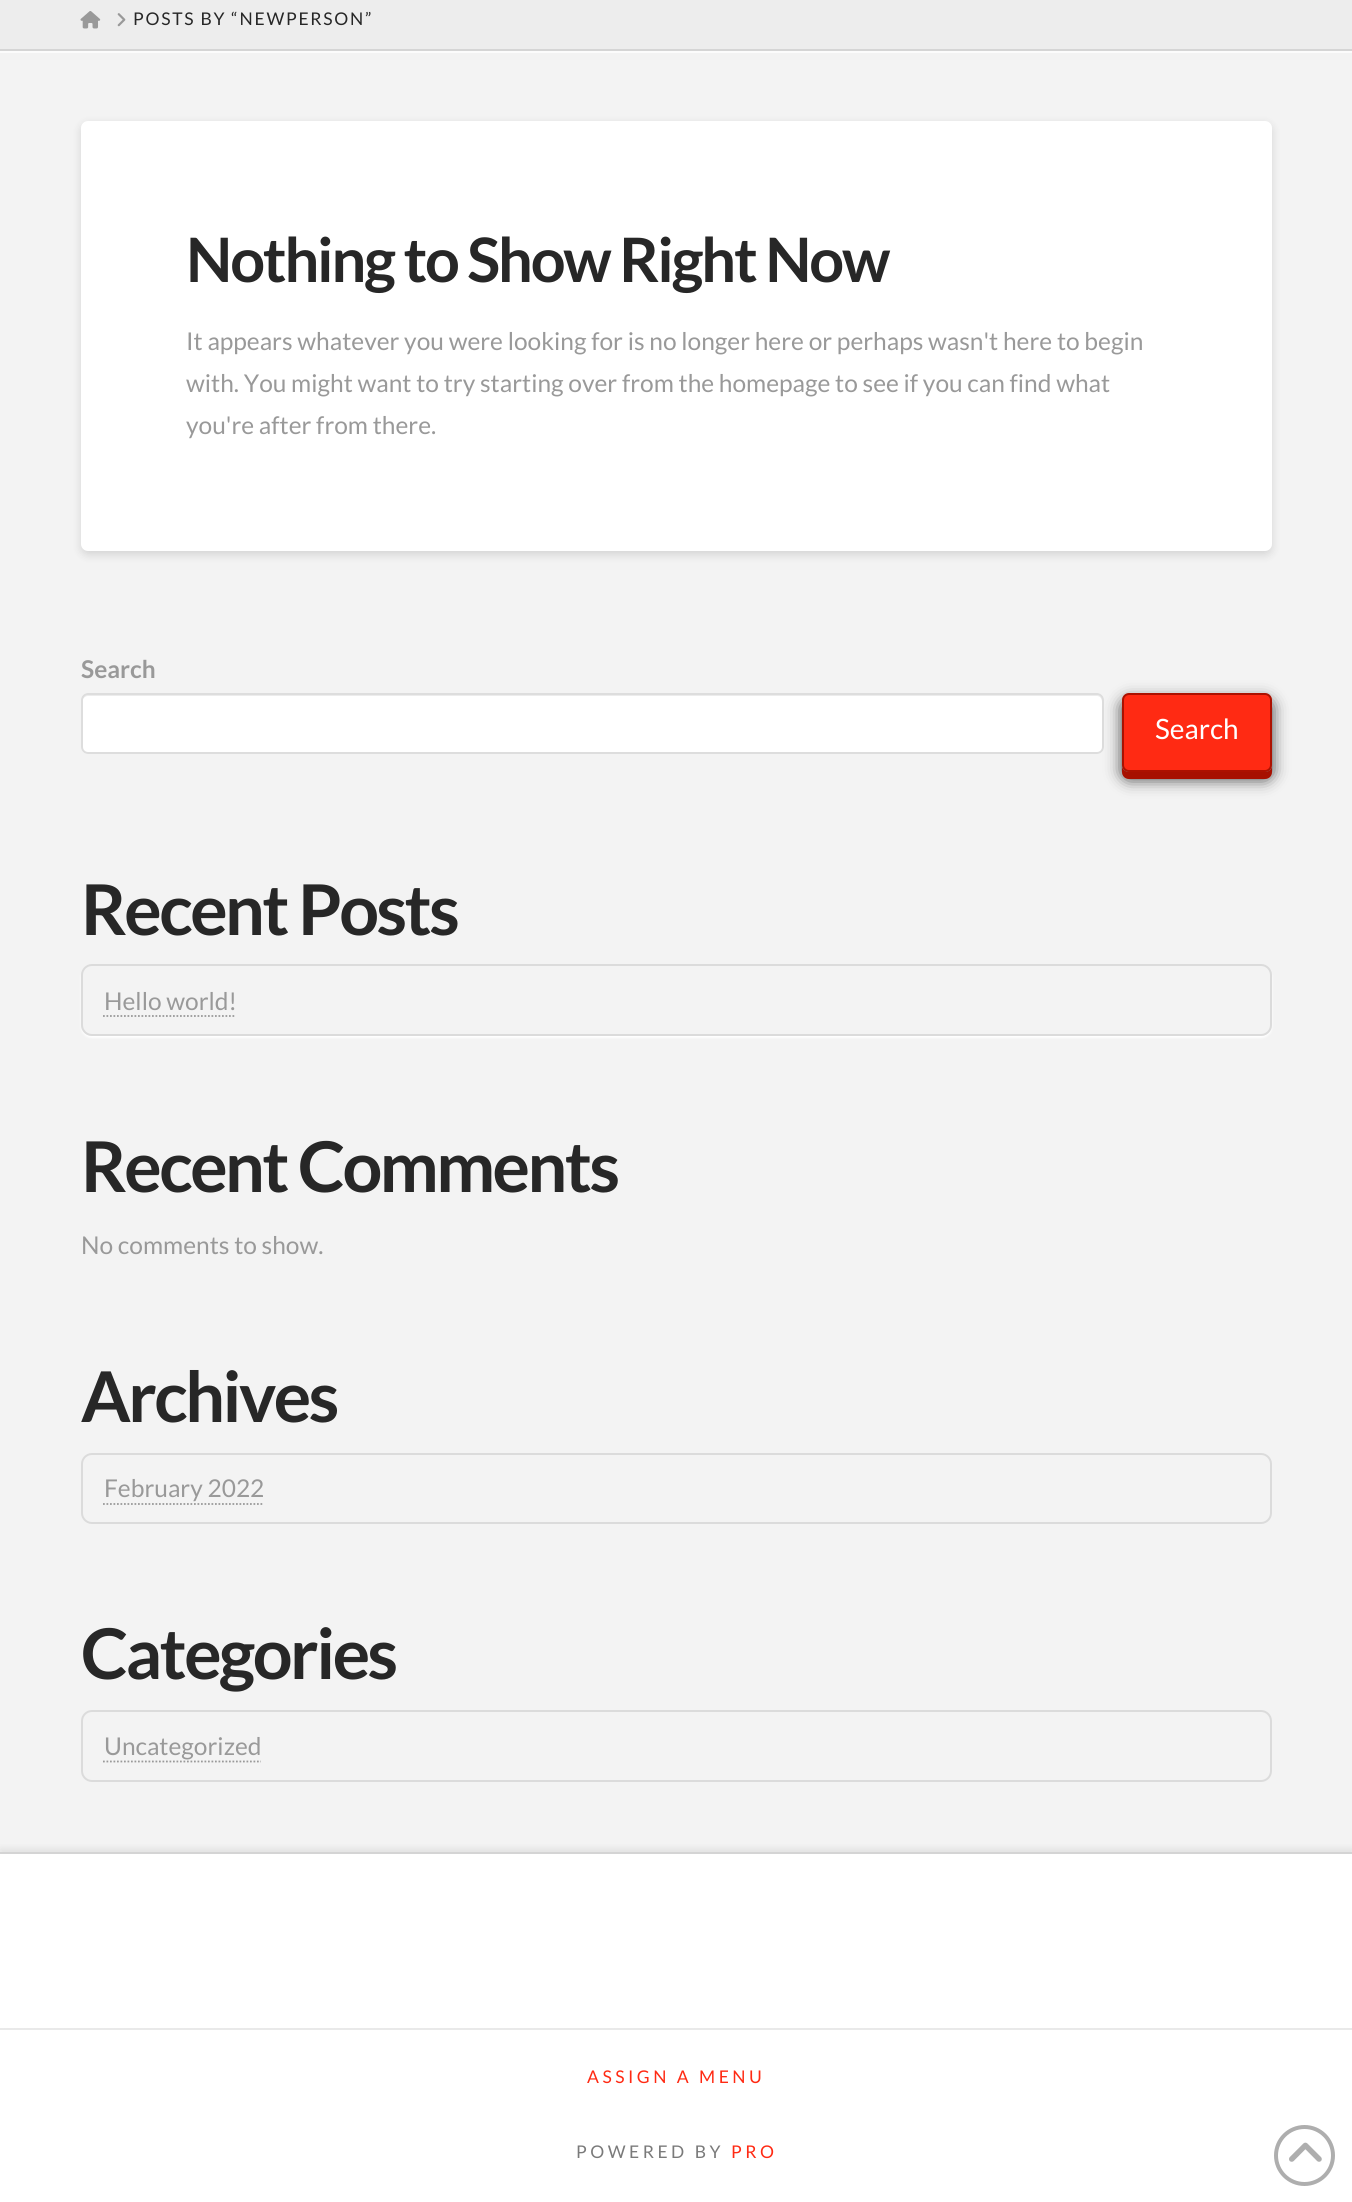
import math
import cairo

surface = cairo.ImageSurface(cairo.FORMAT_RGB24, 1352, 2202)
ctx = cairo.Context(surface)
options = cairo.FontOptions()
options.set_hint_metrics(cairo.HINT_METRICS_OFF)
options.set_hint_style(cairo.HINT_STYLE_NONE)
ctx.set_font_options(options)
ctx.set_miter_limit(4)


def set_color(code):
    ctx.set_source_rgb(*(v / 255 for v in bytes.fromhex(code[-6:])))


def draw_text(x, y, s, family, size, color, bold=False, italic=False):
    ctx.select_font_face(family, cairo.FONT_SLANT_ITALIC if italic else cairo.FONT_SLANT_NORMAL, cairo.FONT_WEIGHT_BOLD if bold else cairo.FONT_WEIGHT_NORMAL)
    ctx.set_font_size(size)
    set_color(color)
    ctx.move_to(x, y)
    ctx.show_text(s)


def draw_spaced(x, y, s, letter, word):
    ctx.move_to(x, y)
    for ch in s:
        ctx.show_text(ch)
        ctx.rel_move_to(letter + word * (ch == ' '), 0)


def fill_rect(x, y, w, h, color):
    set_color(color)
    ctx.rectangle(x, y, w, h)
    ctx.fill()


def rounded_rect(x, y, w, h, r):
    ctx.new_sub_path()
    for i, (u, v) in enumerate([(x + w - r, y + h - r), (x + r, y + h - r), (x + r, y + r), (x + w - r, y + r)]):
        ctx.arc(u, v, r, i * math.pi / 2, (i + 1) * math.pi / 2)
    ctx.close_path()


def draw_shadow(x, y, w, h, r, blur, alpha):
    ctx.push_group_with_content(cairo.CONTENT_ALPHA)
    ctx.set_operator(cairo.OPERATOR_SOURCE)
    for i in range(15, -16, -2):
        e = blur * i / 6
        if min(w, h) + 2 * e > 0:
            ctx.set_source_rgba(0, 0, 0, alpha * math.erfc((i - 1) / 8.5) / 2)
            rounded_rect(x - e, y - e, w + 2 * e, h + 2 * e, max(0, min(r + e + blur * .6, min(w, h) / 2 + e)))
            ctx.fill()
    ctx.mask(ctx.pop_group())


def draw_image(path, x, y, w, h):
    ctx.save()
    ctx.set_source_surface(cairo.ImageSurface.create_from_png(path), x, y)
    ctx.rectangle(x, y, w, h)
    ctx.fill()
    ctx.restore()


set_color("#f3f3f3")
ctx.paint()
set_color("#fcfcfc")
ctx.new_path()
ctx.move_to(0, 51)
ctx.line_to(0, 53)
ctx.line_to(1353, 53)
ctx.line_to(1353, -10)
ctx.line_to(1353, 51)
ctx.close_path()
ctx.fill()
fill_rect(0, 0, 1352, 49, "#ededed")
fill_rect(0, 49, 1352, 2, "#d5d5d5")
draw_image("assets/img1.png", 80, 11, 21, 18)
draw_image("assets/img2.png", 117, 13, 9, 14)
ctx.select_font_face("Lato")
ctx.set_font_size(17.5)
set_color("#272727")
draw_spaced(133, 25, "POSTS BY “NEWPERSON”", 1.75, 0)
set_color("#000000")
draw_shadow(81, 124, 1191, 431, 7, 4.5, 0.13)
set_color("#ffffff")
rounded_rect(81, 121, 1191, 430, 7)
ctx.fill()
ctx.select_font_face("Lato", cairo.FONT_SLANT_NORMAL, cairo.FONT_WEIGHT_BOLD)
ctx.set_font_size(61.25)
set_color("#272727")
draw_spaced(186, 282, "Nothing to Show Right Now", -2.15, 0)
draw_text(186, 350, "It appears whatever you were looking for is no longer here or perhaps wasn't here to begin", "Lato", 24.5, "#999999")
draw_text(186, 392, "with. You might want to try starting over from the homepage to see if you can find what", "Lato", 24.5, "#999999")
draw_text(186, 434, "you're after from there.", "Lato", 24.5, "#999999")
draw_text(81, 678, "Search", "Lato", 24.5, "#999999", bold=True)
set_color("#ffffff")
rounded_rect(81, 693, 1023, 61, 7)
ctx.fill()
set_color("#ececec")
ctx.new_path()
ctx.move_to(88, 696)
ctx.line_to(1097, 696)
ctx.curve_to(1100, 696, 1102, 699, 1102, 702)
ctx.line_to(1102, 749)
ctx.line_to(1101, 752)
ctx.curve_to(1102, 751, 1103, 749, 1103, 748)
ctx.line_to(1103, 700)
ctx.curve_to(1103, 697, 1101, 695, 1098, 695)
ctx.line_to(87, 695)
ctx.curve_to(84, 695, 82, 697, 82, 700)
ctx.line_to(82, 702)
ctx.curve_to(82, 699, 85, 696, 88, 696)
ctx.close_path()
ctx.fill()
rounded_rect(82, 694, 1021, 59, 6)
set_color("#dddddd")
ctx.stroke()
set_color("#000000")
draw_shadow(1122, 700, 150, 79, 7, 8, 0.75)
set_color("#a71000")
ctx.new_path()
ctx.move_to(1122, 767)
ctx.line_to(1122, 772)
ctx.curve_to(1122, 776, 1125, 779, 1129, 779)
ctx.line_to(1265, 779)
ctx.curve_to(1269, 779, 1272, 776, 1272, 772)
ctx.line_to(1272, 767)
ctx.curve_to(1271, 770, 1268, 772, 1265, 772)
ctx.line_to(1129, 772)
ctx.curve_to(1126, 772, 1123, 770, 1122, 767)
ctx.close_path()
ctx.fill()
set_color("#ff2a13")
rounded_rect(1123, 694, 148, 77, 6)
ctx.fill_preserve()
set_color("#ac1100")
ctx.stroke()
draw_text(1155, 739, "Search", "Lato", 28, "#ffffff")
ctx.select_font_face("Lato", cairo.FONT_SLANT_NORMAL, cairo.FONT_WEIGHT_BOLD)
ctx.set_font_size(70)
set_color("#272727")
draw_spaced(81, 935, "Recent Posts", -2.5, 0)
ctx.save()
ctx.set_fill_rule(cairo.FILL_RULE_EVEN_ODD)
ctx.new_path()
ctx.move_to(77, 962)
ctx.line_to(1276, 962)
ctx.line_to(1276, 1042)
ctx.line_to(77, 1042)
ctx.close_path()
ctx.move_to(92, 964)
ctx.line_to(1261, 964)
ctx.curve_to(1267, 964, 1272, 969, 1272, 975)
ctx.line_to(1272, 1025)
ctx.curve_to(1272, 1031, 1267, 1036, 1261, 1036)
ctx.line_to(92, 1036)
ctx.curve_to(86, 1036, 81, 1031, 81, 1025)
ctx.line_to(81, 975)
ctx.curve_to(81, 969, 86, 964, 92, 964)
ctx.close_path()
ctx.clip()
set_color("#ffffff")
draw_shadow(81, 966, 1191, 72, 11, 1, 0.95)
ctx.restore()
rounded_rect(82, 965, 1189, 70, 10)
set_color("#dbdbdb")
ctx.stroke()
ctx.save()
rounded_rect(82, 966, 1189, 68, 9)
ctx.clip()
ctx.set_fill_rule(cairo.FILL_RULE_EVEN_ODD)
ctx.new_path()
ctx.move_to(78, 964)
ctx.line_to(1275, 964)
ctx.line_to(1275, 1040)
ctx.line_to(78, 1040)
ctx.close_path()
ctx.move_to(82, 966)
ctx.line_to(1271, 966)
ctx.line_to(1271, 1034)
ctx.line_to(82, 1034)
ctx.close_path()
ctx.clip()
set_color("#ffffff")
draw_shadow(82, 968, 1189, 68, 0, 1, 0.95)
ctx.restore()
draw_text(104, 1010, "Hello world!", "Lato", 24.5, "#999999")
ctx.new_path()
ctx.move_to(103, 1016)
ctx.line_to(236, 1016)
ctx.set_line_width(1.8)
ctx.set_dash([1.75, 1.75])
ctx.stroke()
ctx.select_font_face("Lato", cairo.FONT_SLANT_NORMAL, cairo.FONT_WEIGHT_BOLD)
ctx.set_font_size(70)
set_color("#272727")
draw_spaced(81, 1192, "Recent Comments", -2.5, 0)
draw_text(81, 1254, "No comments to show.", "Lato", 24.5, "#999999")
ctx.select_font_face("Lato", cairo.FONT_SLANT_NORMAL, cairo.FONT_WEIGHT_BOLD)
ctx.set_font_size(70)
set_color("#272727")
draw_spaced(81, 1422, "Archives", -2.5, 0)
rounded_rect(82, 1454, 1189, 69, 10)
set_color("#dbdbdb")
ctx.set_line_width(2)
ctx.set_dash([])
ctx.stroke()
ctx.save()
rounded_rect(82, 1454, 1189, 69, 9)
ctx.clip()
ctx.set_fill_rule(cairo.FILL_RULE_EVEN_ODD)
ctx.new_path()
ctx.move_to(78, 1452)
ctx.line_to(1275, 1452)
ctx.line_to(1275, 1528)
ctx.line_to(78, 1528)
ctx.close_path()
ctx.move_to(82, 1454)
ctx.line_to(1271, 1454)
ctx.line_to(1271, 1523)
ctx.line_to(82, 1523)
ctx.close_path()
ctx.clip()
set_color("#ffffff")
draw_shadow(82, 1456, 1189, 68, 0, 1, 0.95)
ctx.restore()
draw_text(104, 1497, "February 2022", "Lato", 24.5, "#999999")
ctx.new_path()
ctx.move_to(103, 1504)
ctx.line_to(264, 1504)
ctx.set_line_width(1.8)
ctx.set_dash([1.75, 1.75])
ctx.stroke()
ctx.select_font_face("Lato", cairo.FONT_SLANT_NORMAL, cairo.FONT_WEIGHT_BOLD)
ctx.set_font_size(70)
set_color("#272727")
draw_spaced(81, 1679, "Categories", -2.5, 0)
rounded_rect(82, 1711, 1189, 70, 10)
ctx.set_source_rgba(0, 0, 0, 0.1)
ctx.set_line_width(2)
ctx.set_dash([])
ctx.stroke()
ctx.save()
rounded_rect(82, 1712, 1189, 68, 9)
ctx.clip()
ctx.set_fill_rule(cairo.FILL_RULE_EVEN_ODD)
ctx.new_path()
ctx.move_to(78, 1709)
ctx.line_to(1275, 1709)
ctx.line_to(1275, 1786)
ctx.line_to(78, 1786)
ctx.close_path()
ctx.move_to(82, 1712)
ctx.line_to(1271, 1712)
ctx.line_to(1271, 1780)
ctx.line_to(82, 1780)
ctx.close_path()
ctx.clip()
set_color("#ffffff")
draw_shadow(82, 1713, 1189, 69, 0, 1, 0.95)
ctx.restore()
draw_text(104, 1755, "Uncategorized", "Lato", 24.5, "#999999")
ctx.new_path()
ctx.move_to(103, 1761.5)
ctx.line_to(261, 1761.5)
ctx.set_line_width(1.8)
ctx.set_dash([1.75, 1.75])
ctx.stroke()
set_color("#000000")
draw_shadow(0, 1848, 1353, 177, 0, 3, 0.07)
fill_rect(0, 1854, 1352, 174, "#ffffff")
fill_rect(0, 1852, 1352, 2, "#d4d4d4")
fill_rect(0, 2030, 1352, 172, "#ffffff")
fill_rect(0, 2028, 1352, 2, "#e9e9e9")
ctx.set_font_size(17.5)
set_color("#ff2a13")
draw_spaced(587, 2083, "ASSIGN A MENU", 3.5, 0)
set_color("#7a7a7a")
draw_spaced(576, 2158, "POWERED BY", 3.5, 0)
set_color("#ff2a13")
draw_spaced(731, 2158, "PRO", 3.5, 0)
ctx.new_path()
ctx.arc(1304.5, 2155.5, 28.5, 0, 2 * math.pi)
set_color("#aeaeae")
ctx.set_line_width(4)
ctx.set_dash([])
ctx.stroke()
draw_image("assets/img3.png", 1289, 2142, 33, 20)
surface.write_to_png("output.png")
